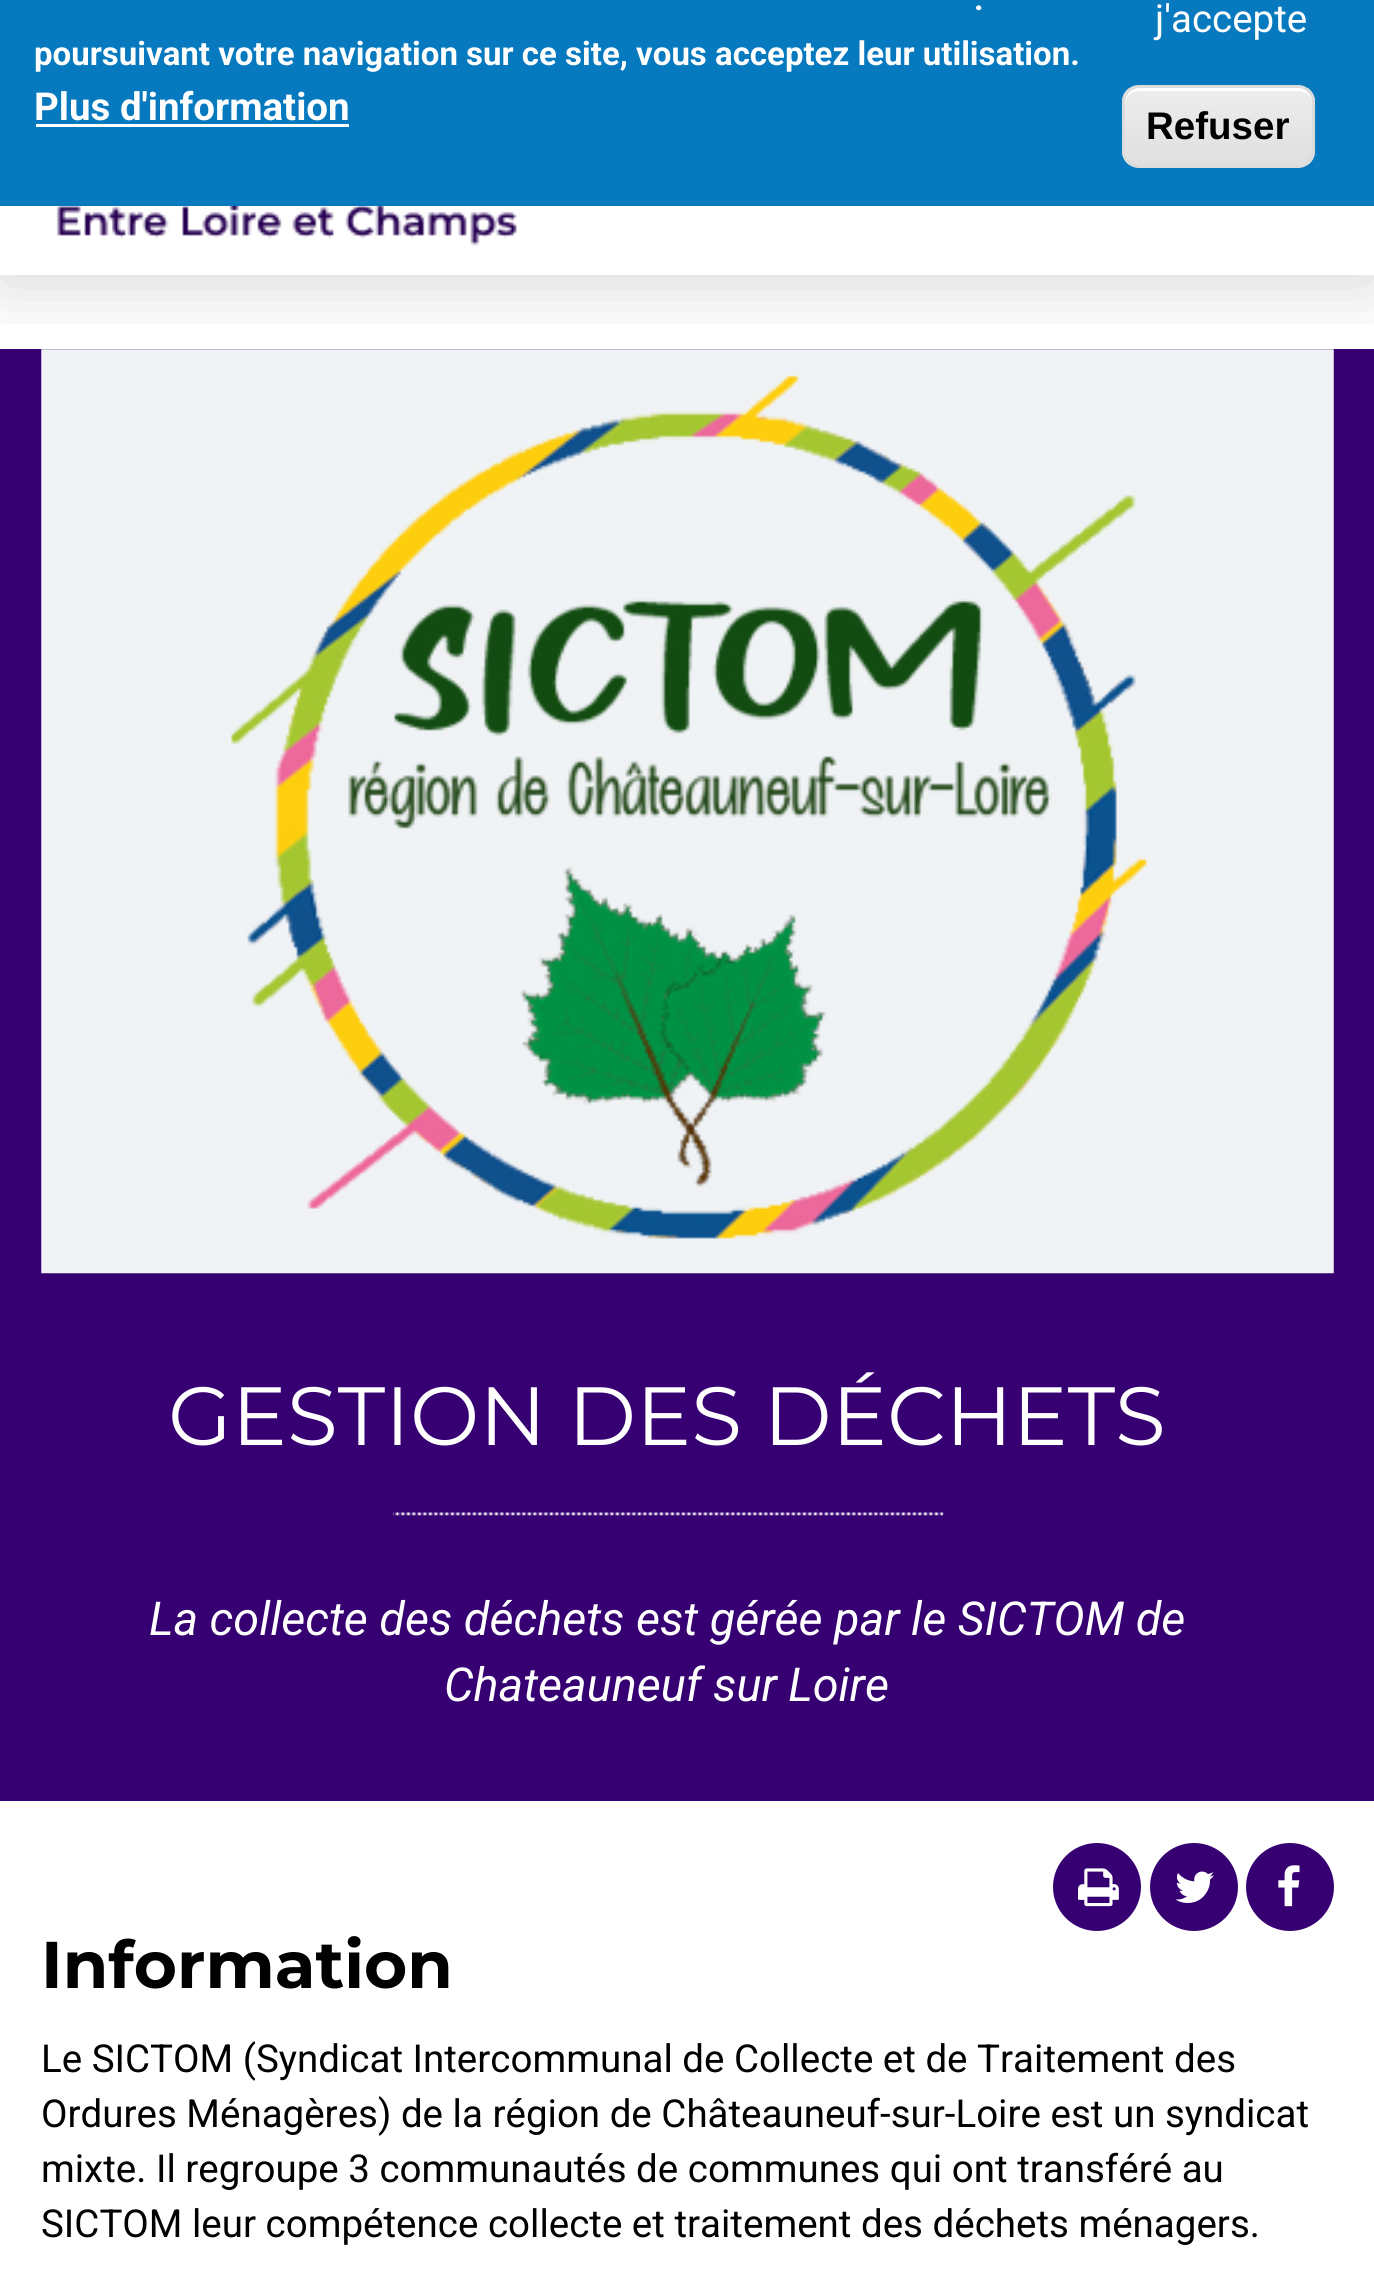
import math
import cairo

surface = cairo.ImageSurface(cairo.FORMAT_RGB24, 1374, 2294)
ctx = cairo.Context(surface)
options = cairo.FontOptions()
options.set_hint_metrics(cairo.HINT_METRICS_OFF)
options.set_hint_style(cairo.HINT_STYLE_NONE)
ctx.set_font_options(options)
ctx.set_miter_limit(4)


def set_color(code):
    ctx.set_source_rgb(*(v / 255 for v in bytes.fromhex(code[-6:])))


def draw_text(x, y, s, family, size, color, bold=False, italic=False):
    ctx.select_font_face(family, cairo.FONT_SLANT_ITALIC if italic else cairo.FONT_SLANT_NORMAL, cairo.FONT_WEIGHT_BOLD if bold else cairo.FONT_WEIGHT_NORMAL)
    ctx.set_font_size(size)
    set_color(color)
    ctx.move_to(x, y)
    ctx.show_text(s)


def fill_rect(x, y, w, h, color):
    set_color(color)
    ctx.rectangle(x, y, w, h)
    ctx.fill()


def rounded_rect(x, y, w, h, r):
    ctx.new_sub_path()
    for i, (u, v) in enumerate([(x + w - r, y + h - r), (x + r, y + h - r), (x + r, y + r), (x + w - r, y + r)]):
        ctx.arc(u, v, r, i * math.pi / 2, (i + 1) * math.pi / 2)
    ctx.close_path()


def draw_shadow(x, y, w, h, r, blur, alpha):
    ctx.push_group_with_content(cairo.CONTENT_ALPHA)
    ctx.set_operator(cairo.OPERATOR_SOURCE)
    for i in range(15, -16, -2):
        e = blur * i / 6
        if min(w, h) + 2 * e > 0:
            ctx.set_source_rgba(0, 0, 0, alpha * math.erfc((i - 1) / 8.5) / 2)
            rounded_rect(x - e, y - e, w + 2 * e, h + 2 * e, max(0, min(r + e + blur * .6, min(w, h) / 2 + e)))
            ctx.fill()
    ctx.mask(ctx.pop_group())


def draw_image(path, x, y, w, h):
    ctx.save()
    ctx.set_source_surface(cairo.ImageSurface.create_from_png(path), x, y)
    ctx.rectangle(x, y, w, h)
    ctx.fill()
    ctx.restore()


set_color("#ffffff")
ctx.paint()
ctx.save()
ctx.rectangle(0, 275, 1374, 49)
ctx.clip()
set_color("#000000")
draw_shadow(0, 8, 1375, 275, 0, 36, 0.16)
ctx.restore()
draw_image("assets/img1.png", 56, 206, 461, 40)
fill_rect(0, 0, 1374, 206, "#0779bf")
draw_text(974, 10, ".", "Roboto", 33, "#ffffff", bold=True)
draw_text(34, 65, "poursuivant votre navigation sur ce site, vous acceptez leur utilisation.", "Roboto", 33, "#ffffff", bold=True)
draw_text(34, 120, "Plus d'information", "Roboto", 38.5, "#ffffff", bold=True)
fill_rect(36, 124, 313, 3, "#ffffff")
draw_text(1155, 32, "j'accepte", "Roboto", 38.5, "#ffffff")
ctx.save()
rounded_rect(1122, 85, 193, 83, 17)
ctx.clip()
gradient = cairo.LinearGradient(1218, 88, 1218, 165)
gradient.add_color_stop_rgba(0.05, 0.929, 0.929, 0.929, 1)
gradient.add_color_stop_rgba(1, 0.875, 0.875, 0.875, 1)
ctx.set_source(gradient)
ctx.rectangle(1122, 88, 193, 77)
ctx.fill()
ctx.restore()
ctx.new_path()
ctx.move_to(1138, 91)
ctx.line_to(1298, 91)
ctx.curve_to(1306, 91, 1312, 97, 1312, 104)
ctx.curve_to(1312, 82, 1286, 88, 1272, 88)
ctx.line_to(1166, 88)
ctx.curve_to(1151, 88, 1125, 82, 1125, 104)
ctx.curve_to(1125, 97, 1131, 91, 1138, 91)
ctx.close_path()
ctx.fill()
rounded_rect(1123.5, 86.5, 190, 80, 15.5)
set_color("#dcdcdc")
ctx.set_line_width(3)
ctx.stroke()
draw_text(1146, 139, "Refuser", "Liberation Sans", 38.5, "#000000", bold=True)
fill_rect(0, 349, 1374, 1452, "#360073")
draw_image("assets/img2.png", 41, 349, 1293, 925)
draw_text(168, 1445, "GESTION DES DÉCHETS", "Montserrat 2 Thin", 82.5, "#ffffff")
draw_image("assets/img3.png", 393, 1512, 551, 4)
draw_text(149, 1635, "La collecte des déchets est gérée par le SICTOM de", "Roboto", 46.75, "#ffffff", italic=True)
draw_text(444, 1701, "Chateauneuf sur Loire", "Roboto", 46.75, "#ffffff", italic=True)
set_color("#360073")
ctx.new_path()
ctx.arc(1097, 1887, 42.5, 0, 2 * math.pi)
ctx.fill_preserve()
ctx.stroke()
draw_image("assets/img4.png", 1078, 1868, 41, 39)
ctx.arc(1194, 1887, 42.5, 0, 2 * math.pi)
ctx.fill_preserve()
ctx.stroke()
draw_image("assets/img5.png", 1175, 1871, 39, 32)
ctx.arc(1290, 1887, 42.5, 0, 2 * math.pi)
ctx.fill_preserve()
ctx.stroke()
draw_image("assets/img6.png", 1278, 1865, 22, 42)
draw_text(41, 1988, "Information", "Montserrat Thin", 66, "#000000")
draw_text(41, 2072, "Le SICTOM (Syndicat Intercommunal de Collecte et de Traitement des", "Roboto", 38.5, "#000000")
draw_text(41, 2127, "Ordures Ménagères) de la région de Châteauneuf-sur-Loire est un syndicat", "Roboto", 38.5, "#000000")
draw_text(41, 2182, "mixte. Il regroupe 3 communautés de communes qui ont transféré au", "Roboto", 38.5, "#000000")
draw_text(41, 2237, "SICTOM leur compétence collecte et traitement des déchets ménagers.", "Roboto", 38.5, "#000000")
surface.write_to_png("output.png")
